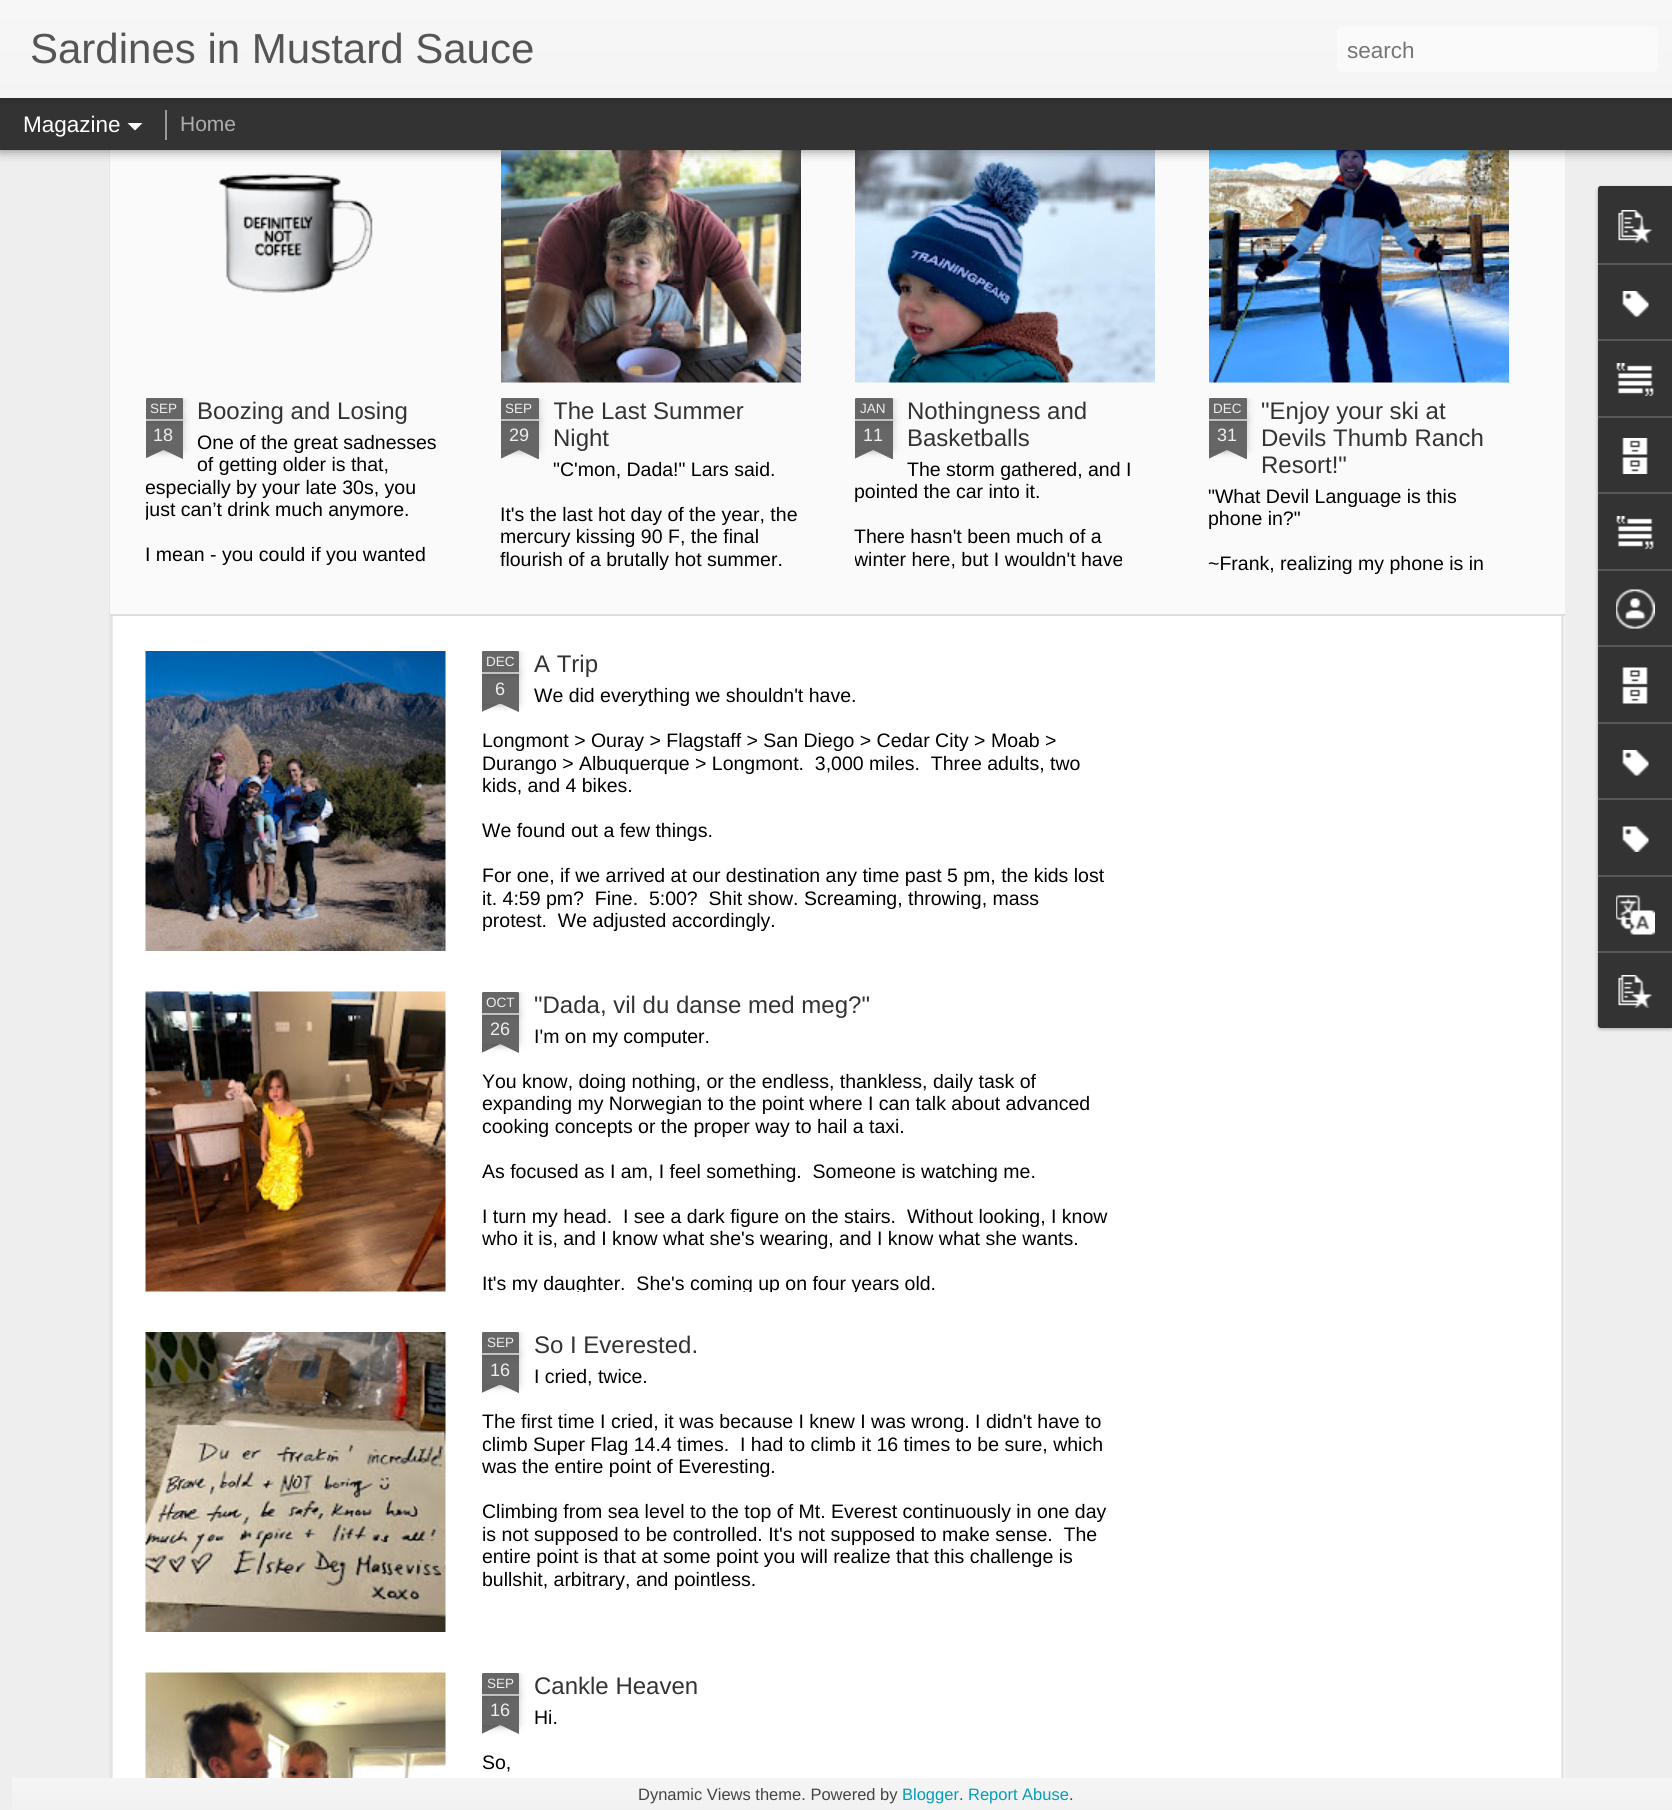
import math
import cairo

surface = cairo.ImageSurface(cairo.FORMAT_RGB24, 1672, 1810)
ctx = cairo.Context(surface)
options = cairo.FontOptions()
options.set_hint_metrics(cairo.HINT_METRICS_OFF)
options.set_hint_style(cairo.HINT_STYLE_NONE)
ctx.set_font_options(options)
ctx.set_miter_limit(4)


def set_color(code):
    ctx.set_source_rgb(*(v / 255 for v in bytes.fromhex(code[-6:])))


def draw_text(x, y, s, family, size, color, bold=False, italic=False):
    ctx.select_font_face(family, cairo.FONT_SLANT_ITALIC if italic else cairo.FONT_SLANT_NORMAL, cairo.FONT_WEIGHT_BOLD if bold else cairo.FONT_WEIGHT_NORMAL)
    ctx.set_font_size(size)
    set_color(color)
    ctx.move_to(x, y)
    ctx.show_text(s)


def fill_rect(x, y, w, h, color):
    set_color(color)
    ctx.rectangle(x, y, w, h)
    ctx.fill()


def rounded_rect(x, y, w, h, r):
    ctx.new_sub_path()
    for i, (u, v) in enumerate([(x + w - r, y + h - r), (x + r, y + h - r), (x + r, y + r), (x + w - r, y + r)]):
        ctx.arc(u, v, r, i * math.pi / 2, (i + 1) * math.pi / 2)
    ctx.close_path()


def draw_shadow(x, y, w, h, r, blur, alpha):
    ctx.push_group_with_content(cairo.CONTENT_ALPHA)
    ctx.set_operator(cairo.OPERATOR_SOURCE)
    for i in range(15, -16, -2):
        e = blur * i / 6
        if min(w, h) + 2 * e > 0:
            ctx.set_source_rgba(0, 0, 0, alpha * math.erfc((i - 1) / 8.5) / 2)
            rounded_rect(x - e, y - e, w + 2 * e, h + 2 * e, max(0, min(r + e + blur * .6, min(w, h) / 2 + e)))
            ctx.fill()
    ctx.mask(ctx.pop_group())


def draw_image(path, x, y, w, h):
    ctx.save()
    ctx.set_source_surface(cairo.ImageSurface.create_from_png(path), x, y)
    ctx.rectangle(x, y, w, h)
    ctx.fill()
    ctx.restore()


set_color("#eeeeee")
ctx.paint()
fill_rect(110, 616, 1455, 1162, "#ffffff")
draw_image("assets/img1.png", 109, 150, 1456, 1628)
fill_rect(110, 150, 1455, 464, "#fafafa")
draw_image("assets/img3.png", 501, 150, 300, 233)
draw_image("assets/img4.png", 855, 150, 300, 233)
draw_image("assets/img5.png", 1209, 150, 300, 233)
set_color("#000000")
draw_shadow(0, 98, 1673, 52, 0, 6, 0.5)
fill_rect(0, 98, 1672, 52, "#333333")
fill_rect(165, 110, 2, 30, "#999999")
set_color("#000000")
draw_shadow(0, 0, 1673, 98, 0, 4, 0.3)
gradient = cairo.LinearGradient(0, 0, 0, 98)
gradient.add_color_stop_rgba(0, 0.969, 0.969, 0.969, 1)
gradient.add_color_stop_rgba(1, 0.957, 0.957, 0.957, 1)
ctx.set_source(gradient)
ctx.rectangle(0, 0, 1672, 98)
ctx.fill()
draw_text(30, 63, "Sardines in Mustard Sauce", "Liberation Sans", 42, "#555555")
set_color("#fafafa")
rounded_rect(1337, 27, 321, 45, 5)
ctx.fill()
draw_text(1347, 58, "search", "Liberation Sans", 22.5, "#757575")
draw_text(23, 132, "Magazine", "Liberation Sans", 22.5, "#ffffff")
ctx.new_path()
ctx.move_to(127.5, 123)
ctx.line_to(142.5, 123)
ctx.line_to(135, 130.5)
ctx.close_path()
ctx.fill()
draw_text(180, 131, "Home", "Liberation Sans", 21, "#adadad")
fill_rect(110, 614, 1455, 2, "#dddddd")
draw_image("assets/img2.png", 218, 173, 155, 120)
ctx.save()
ctx.rectangle(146, 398, 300, 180)
ctx.clip()
set_color("#000000")
draw_shadow(146, 420, 37, 30, 0, 4, 0.2)
ctx.restore()
fill_rect(146, 420, 37, 30, "#666666")
ctx.save()
ctx.rectangle(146, 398, 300, 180)
ctx.clip()
set_color("#000000")
draw_shadow(146, 398, 37, 22, 1.5, 4, 0.2)
ctx.restore()
ctx.new_path()
ctx.move_to(147.5, 398)
ctx.line_to(181.5, 398)
ctx.curve_to(182.5, 398, 183, 398.5, 183, 399.5)
ctx.line_to(183, 420)
ctx.line_to(146, 420)
ctx.line_to(146, 399.5)
ctx.curve_to(146, 398.5, 146.5, 398, 147.5, 398)
ctx.close_path()
ctx.fill()
ctx.set_source_rgba(1, 1, 1, 0.6)
ctx.rectangle(146, 419, 37, 2)
ctx.fill()
draw_text(150, 413, "SEP", "Liberation Sans", 13.5, "#eeeeee")
ctx.save()
ctx.rectangle(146, 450, 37, 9)
ctx.clip()
set_color("#000000")
draw_shadow(137, 440, 60, 9, 0, 4, 0.2)
ctx.restore()
ctx.save()
ctx.rectangle(146, 450, 37, 9)
ctx.clip()
set_color("#666666")
ctx.new_path()
ctx.move_to(137, 453)
ctx.line_to(191, 427)
ctx.line_to(195, 435)
ctx.line_to(140, 461)
ctx.close_path()
ctx.fill()
ctx.restore()
ctx.save()
ctx.rectangle(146, 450, 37, 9)
ctx.clip()
set_color("#000000")
draw_shadow(131, 440, 60, 9, 0, 4, 0.2)
ctx.restore()
ctx.save()
ctx.rectangle(146, 450, 37, 9)
ctx.clip()
set_color("#666666")
ctx.new_path()
ctx.move_to(136, 427)
ctx.line_to(190, 453)
ctx.line_to(187, 461)
ctx.line_to(132, 435)
ctx.close_path()
ctx.fill()
ctx.restore()
draw_text(153, 441, "18", "Liberation Sans", 18, "#eeeeee")
draw_text(197, 419, "Boozing and Losing", "Liberation Sans", 24, "#333333")
draw_text(197, 449, "One of the great sadnesses", "Liberation Sans", 19.5, "#000000")
draw_text(197, 471, "of getting older is that,", "Liberation Sans", 19.5, "#000000")
ctx.save()
ctx.rectangle(146, 398, 300, 180)
ctx.clip()
draw_text(145, 494, "especially by your late 30s, you", "Liberation Sans", 19.5, "#000000")
draw_text(145, 516, "just can’t drink much anymore.", "Liberation Sans", 19.5, "#000000")
ctx.restore()
draw_text(145, 561, "I mean - you could if you wanted", "Liberation Sans", 19.5, "#000000")
ctx.save()
ctx.rectangle(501, 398, 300, 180)
ctx.clip()
set_color("#000000")
draw_shadow(501, 420, 38, 30, 0, 4, 0.2)
ctx.restore()
fill_rect(501, 420, 38, 30, "#666666")
ctx.save()
ctx.rectangle(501, 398, 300, 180)
ctx.clip()
set_color("#000000")
draw_shadow(501, 398, 38, 22, 1.5, 4, 0.2)
ctx.restore()
ctx.new_path()
ctx.move_to(502.5, 398)
ctx.line_to(537.5, 398)
ctx.curve_to(538.5, 398, 539, 398.5, 539, 399.5)
ctx.line_to(539, 420)
ctx.line_to(501, 420)
ctx.line_to(501, 399.5)
ctx.curve_to(501, 398.5, 501.5, 398, 502.5, 398)
ctx.close_path()
ctx.fill()
ctx.set_source_rgba(1, 1, 1, 0.6)
ctx.rectangle(501, 419, 38, 2)
ctx.fill()
draw_text(505, 413, "SEP", "Liberation Sans", 13.5, "#eeeeee")
ctx.save()
ctx.rectangle(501, 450, 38, 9)
ctx.clip()
set_color("#000000")
draw_shadow(492, 440, 60, 9, 0, 4, 0.2)
ctx.restore()
ctx.save()
ctx.rectangle(501, 450, 38, 9)
ctx.clip()
set_color("#666666")
ctx.new_path()
ctx.move_to(492, 453)
ctx.line_to(547, 427)
ctx.line_to(550, 435)
ctx.line_to(496, 461)
ctx.close_path()
ctx.fill()
ctx.restore()
ctx.save()
ctx.rectangle(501, 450, 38, 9)
ctx.clip()
set_color("#000000")
draw_shadow(488, 440, 60, 9, 0, 4, 0.2)
ctx.restore()
ctx.save()
ctx.rectangle(501, 450, 38, 9)
ctx.clip()
set_color("#666666")
ctx.new_path()
ctx.move_to(491, 427)
ctx.line_to(546, 453)
ctx.line_to(542, 461)
ctx.line_to(488, 435)
ctx.close_path()
ctx.fill()
ctx.restore()
draw_text(509, 441, "29", "Liberation Sans", 18, "#eeeeee")
ctx.save()
ctx.rectangle(554, 398, 247, 60)
ctx.clip()
draw_text(553, 419, "The Last Summer", "Liberation Sans", 24, "#333333")
ctx.restore()
draw_text(553, 446, "Night", "Liberation Sans", 24, "#333333")
draw_text(553, 476, "\"C'mon, Dada!\" Lars said.", "Liberation Sans", 19.5, "#000000")
draw_text(500, 521, "It's the last hot day of the year, the", "Liberation Sans", 19.5, "#000000")
draw_text(500, 543, "mercury kissing 90 F, the final", "Liberation Sans", 19.5, "#000000")
draw_text(500, 566, "flourish of a brutally hot summer.", "Liberation Sans", 19.5, "#000000")
ctx.save()
ctx.rectangle(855, 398, 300, 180)
ctx.clip()
set_color("#000000")
draw_shadow(855, 420, 38, 30, 0, 4, 0.2)
ctx.restore()
fill_rect(855, 420, 38, 30, "#666666")
ctx.save()
ctx.rectangle(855, 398, 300, 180)
ctx.clip()
set_color("#000000")
draw_shadow(855, 398, 38, 22, 1.5, 4, 0.2)
ctx.restore()
ctx.new_path()
ctx.move_to(856.5, 398)
ctx.line_to(891.5, 398)
ctx.curve_to(892.5, 398, 893, 398.5, 893, 399.5)
ctx.line_to(893, 420)
ctx.line_to(855, 420)
ctx.line_to(855, 399.5)
ctx.curve_to(855, 398.5, 855.5, 398, 856.5, 398)
ctx.close_path()
ctx.fill()
ctx.set_source_rgba(1, 1, 1, 0.6)
ctx.rectangle(855, 419, 38, 2)
ctx.fill()
draw_text(860, 413, "JAN", "Liberation Sans", 13.5, "#eeeeee")
ctx.save()
ctx.rectangle(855, 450, 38, 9)
ctx.clip()
set_color("#000000")
draw_shadow(846, 440, 60, 9, 0, 4, 0.2)
ctx.restore()
ctx.save()
ctx.rectangle(855, 450, 38, 9)
ctx.clip()
set_color("#666666")
ctx.new_path()
ctx.move_to(846, 453)
ctx.line_to(901, 427)
ctx.line_to(904, 435)
ctx.line_to(850, 461)
ctx.close_path()
ctx.fill()
ctx.restore()
ctx.save()
ctx.rectangle(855, 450, 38, 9)
ctx.clip()
set_color("#000000")
draw_shadow(842, 440, 60, 9, 0, 4, 0.2)
ctx.restore()
ctx.save()
ctx.rectangle(855, 450, 38, 9)
ctx.clip()
set_color("#666666")
ctx.new_path()
ctx.move_to(845, 427)
ctx.line_to(900, 453)
ctx.line_to(896, 461)
ctx.line_to(842, 435)
ctx.close_path()
ctx.fill()
ctx.restore()
draw_text(863, 441, "11", "Liberation Sans", 18, "#eeeeee")
draw_text(907, 419, "Nothingness and", "Liberation Sans", 24, "#333333")
draw_text(907, 446, "Basketballs", "Liberation Sans", 24, "#333333")
draw_text(907, 476, "The storm gathered, and I", "Liberation Sans", 19.5, "#000000")
draw_text(854, 498, "pointed the car into it.", "Liberation Sans", 19.5, "#000000")
draw_text(854, 543, "There hasn't been much of a", "Liberation Sans", 19.5, "#000000")
ctx.save()
ctx.rectangle(855, 398, 300, 180)
ctx.clip()
draw_text(854, 566, "winter here, but I wouldn't have", "Liberation Sans", 19.5, "#000000")
ctx.restore()
ctx.save()
ctx.rectangle(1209, 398, 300, 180)
ctx.clip()
set_color("#000000")
draw_shadow(1209, 420, 38, 30, 0, 4, 0.2)
ctx.restore()
fill_rect(1209, 420, 38, 30, "#666666")
ctx.save()
ctx.rectangle(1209, 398, 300, 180)
ctx.clip()
set_color("#000000")
draw_shadow(1209, 398, 38, 22, 1.5, 4, 0.2)
ctx.restore()
ctx.new_path()
ctx.move_to(1210.5, 398)
ctx.line_to(1245.5, 398)
ctx.curve_to(1246.5, 398, 1247, 398.5, 1247, 399.5)
ctx.line_to(1247, 420)
ctx.line_to(1209, 420)
ctx.line_to(1209, 399.5)
ctx.curve_to(1209, 398.5, 1209.5, 398, 1210.5, 398)
ctx.close_path()
ctx.fill()
ctx.set_source_rgba(1, 1, 1, 0.6)
ctx.rectangle(1209, 419, 38, 2)
ctx.fill()
draw_text(1213, 413, "DEC", "Liberation Sans", 13.5, "#eeeeee")
ctx.save()
ctx.rectangle(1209, 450, 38, 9)
ctx.clip()
set_color("#000000")
draw_shadow(1200, 440, 60, 9, 0, 4, 0.2)
ctx.restore()
ctx.save()
ctx.rectangle(1209, 450, 38, 9)
ctx.clip()
set_color("#666666")
ctx.new_path()
ctx.move_to(1200, 453)
ctx.line_to(1255, 427)
ctx.line_to(1258, 435)
ctx.line_to(1204, 461)
ctx.close_path()
ctx.fill()
ctx.restore()
ctx.save()
ctx.rectangle(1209, 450, 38, 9)
ctx.clip()
set_color("#000000")
draw_shadow(1196, 440, 60, 9, 0, 4, 0.2)
ctx.restore()
ctx.save()
ctx.rectangle(1209, 450, 38, 9)
ctx.clip()
set_color("#666666")
ctx.new_path()
ctx.move_to(1199, 427)
ctx.line_to(1254, 453)
ctx.line_to(1250, 461)
ctx.line_to(1196, 435)
ctx.close_path()
ctx.fill()
ctx.restore()
draw_text(1217, 441, "31", "Liberation Sans", 18, "#eeeeee")
ctx.save()
ctx.rectangle(1262, 398, 247, 87)
ctx.clip()
draw_text(1261, 419, "\"Enjoy your ski at", "Liberation Sans", 24, "#333333")
ctx.restore()
draw_text(1261, 446, "Devils Thumb Ranch", "Liberation Sans", 24, "#333333")
draw_text(1261, 473, "Resort!\"", "Liberation Sans", 24, "#333333")
draw_text(1208, 503, "\"What Devil Language is this", "Liberation Sans", 19.5, "#000000")
draw_text(1208, 525, "phone in?\"", "Liberation Sans", 19.5, "#000000")
draw_text(1208, 570, "~Frank, realizing my phone is in", "Liberation Sans", 19.5, "#000000")
draw_image("assets/img6.png", 145, 651, 301, 300)
ctx.save()
ctx.rectangle(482, 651, 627, 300)
ctx.clip()
set_color("#000000")
draw_shadow(482, 674, 37, 30, 0, 4, 0.2)
ctx.restore()
fill_rect(482, 674, 37, 30, "#666666")
ctx.save()
ctx.rectangle(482, 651, 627, 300)
ctx.clip()
set_color("#000000")
draw_shadow(482, 651, 37, 23, 1.5, 4, 0.2)
ctx.restore()
ctx.new_path()
ctx.move_to(483.5, 651)
ctx.line_to(517.5, 651)
ctx.curve_to(518.5, 651, 519, 651.5, 519, 652.5)
ctx.line_to(519, 674)
ctx.line_to(482, 674)
ctx.line_to(482, 652.5)
ctx.curve_to(482, 651.5, 482.5, 651, 483.5, 651)
ctx.close_path()
ctx.fill()
fill_rect(482, 672, 37, 2, "#c2c2c2")
draw_text(486, 666, "DEC", "Liberation Sans", 13.5, "#eeeeee")
ctx.save()
ctx.rectangle(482, 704, 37, 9)
ctx.clip()
set_color("#000000")
draw_shadow(473, 693, 60, 9, 0, 4, 0.2)
ctx.restore()
ctx.save()
ctx.rectangle(482, 704, 37, 9)
ctx.clip()
set_color("#666666")
ctx.new_path()
ctx.move_to(474, 706)
ctx.line_to(528, 681)
ctx.line_to(532, 689)
ctx.line_to(477, 714)
ctx.close_path()
ctx.fill()
ctx.restore()
ctx.save()
ctx.rectangle(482, 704, 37, 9)
ctx.clip()
set_color("#000000")
draw_shadow(468, 693, 60, 9, 0, 4, 0.2)
ctx.restore()
ctx.save()
ctx.rectangle(482, 704, 37, 9)
ctx.clip()
set_color("#666666")
ctx.new_path()
ctx.move_to(473, 681)
ctx.line_to(527, 706)
ctx.line_to(523, 714)
ctx.line_to(469, 689)
ctx.close_path()
ctx.fill()
ctx.restore()
draw_text(495, 695, "6", "Liberation Sans", 18, "#eeeeee")
draw_text(534, 672, "A Trip", "Liberation Sans", 24, "#333333")
draw_text(534, 702, "We did everything we shouldn't have.", "Liberation Sans", 19.5, "#000000")
draw_text(482, 747, "Longmont > Ouray > Flagstaff > San Diego > Cedar City > Moab >", "Liberation Sans", 19.5, "#000000")
draw_text(482, 770, "Durango > Albuquerque > Longmont.  3,000 miles.  Three adults, two", "Liberation Sans", 19.5, "#000000")
draw_text(482, 792, "kids, and 4 bikes.", "Liberation Sans", 19.5, "#000000")
draw_text(482, 837, "We found out a few things.", "Liberation Sans", 19.5, "#000000")
draw_text(482, 882, "For one, if we arrived at our destination any time past 5 pm, the kids lost", "Liberation Sans", 19.5, "#000000")
draw_text(482, 905, "it. 4:59 pm?  Fine.  5:00?  Shit show. Screaming, throwing, mass", "Liberation Sans", 19.5, "#000000")
draw_text(482, 927, "protest.  We adjusted accordingly.", "Liberation Sans", 19.5, "#000000")
draw_image("assets/img7.png", 145, 991, 301, 301)
ctx.save()
ctx.rectangle(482, 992, 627, 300)
ctx.clip()
set_color("#000000")
draw_shadow(482, 1014, 37, 30, 0, 4, 0.2)
ctx.restore()
fill_rect(482, 1014, 37, 30, "#666666")
ctx.save()
ctx.rectangle(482, 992, 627, 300)
ctx.clip()
set_color("#000000")
draw_shadow(482, 992, 37, 22, 1.5, 4, 0.2)
ctx.restore()
ctx.new_path()
ctx.move_to(483.5, 992)
ctx.line_to(517.5, 992)
ctx.curve_to(518.5, 992, 519, 992.5, 519, 993.5)
ctx.line_to(519, 1014)
ctx.line_to(482, 1014)
ctx.line_to(482, 993.5)
ctx.curve_to(482, 992.5, 482.5, 992, 483.5, 992)
ctx.close_path()
ctx.fill()
ctx.set_source_rgba(1, 1, 1, 0.6)
ctx.rectangle(482, 1013, 37, 2)
ctx.fill()
draw_text(486, 1007, "OCT", "Liberation Sans", 13.5, "#eeeeee")
ctx.save()
ctx.rectangle(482, 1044, 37, 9)
ctx.clip()
set_color("#000000")
draw_shadow(473, 1034, 60, 9, 0, 4, 0.2)
ctx.restore()
ctx.save()
ctx.rectangle(482, 1044, 37, 9)
ctx.clip()
set_color("#666666")
ctx.new_path()
ctx.move_to(474, 1047)
ctx.line_to(528, 1021)
ctx.line_to(532, 1029)
ctx.line_to(477, 1055)
ctx.close_path()
ctx.fill()
ctx.restore()
ctx.save()
ctx.rectangle(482, 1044, 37, 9)
ctx.clip()
set_color("#000000")
draw_shadow(468, 1034, 60, 9, 0, 4, 0.2)
ctx.restore()
ctx.save()
ctx.rectangle(482, 1044, 37, 9)
ctx.clip()
set_color("#666666")
ctx.new_path()
ctx.move_to(473, 1021)
ctx.line_to(527, 1047)
ctx.line_to(523, 1055)
ctx.line_to(469, 1029)
ctx.close_path()
ctx.fill()
ctx.restore()
draw_text(490, 1035, "26", "Liberation Sans", 18, "#eeeeee")
draw_text(534, 1013, "\"Dada, vil du danse med meg?\"", "Liberation Sans", 24, "#333333")
draw_text(534, 1043, "I'm on my computer.", "Liberation Sans", 19.5, "#000000")
draw_text(482, 1088, "You know, doing nothing, or the endless, thankless, daily task of", "Liberation Sans", 19.5, "#000000")
draw_text(482, 1110, "expanding my Norwegian to the point where I can talk about advanced", "Liberation Sans", 19.5, "#000000")
draw_text(482, 1133, "cooking concepts or the proper way to hail a taxi.", "Liberation Sans", 19.5, "#000000")
draw_text(482, 1178, "As focused as I am, I feel something.  Someone is watching me.", "Liberation Sans", 19.5, "#000000")
draw_text(482, 1223, "I turn my head.  I see a dark figure on the stairs.  Without looking, I know", "Liberation Sans", 19.5, "#000000")
draw_text(482, 1245, "who it is, and I know what she's wearing, and I know what she wants.", "Liberation Sans", 19.5, "#000000")
ctx.save()
ctx.rectangle(482, 992, 627, 300)
ctx.clip()
draw_text(482, 1290, "It's my daughter.  She's coming up on four years old.", "Liberation Sans", 19.5, "#000000")
ctx.restore()
draw_image("assets/img8.png", 145, 1332, 301, 300)
ctx.save()
ctx.rectangle(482, 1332, 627, 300)
ctx.clip()
set_color("#000000")
draw_shadow(482, 1355, 37, 30, 0, 4, 0.2)
ctx.restore()
fill_rect(482, 1355, 37, 30, "#666666")
ctx.save()
ctx.rectangle(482, 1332, 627, 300)
ctx.clip()
set_color("#000000")
draw_shadow(482, 1332, 37, 23, 1.5, 4, 0.2)
ctx.restore()
ctx.new_path()
ctx.move_to(483.5, 1332)
ctx.line_to(517.5, 1332)
ctx.curve_to(518.5, 1332, 519, 1332.5, 519, 1333.5)
ctx.line_to(519, 1355)
ctx.line_to(482, 1355)
ctx.line_to(482, 1333.5)
ctx.curve_to(482, 1332.5, 482.5, 1332, 483.5, 1332)
ctx.close_path()
ctx.fill()
fill_rect(482, 1353, 37, 2, "#c2c2c2")
draw_text(487, 1347, "SEP", "Liberation Sans", 13.5, "#eeeeee")
ctx.save()
ctx.rectangle(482, 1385, 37, 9)
ctx.clip()
set_color("#000000")
draw_shadow(473, 1374, 60, 9, 0, 4, 0.2)
ctx.restore()
ctx.save()
ctx.rectangle(482, 1385, 37, 9)
ctx.clip()
set_color("#666666")
ctx.new_path()
ctx.move_to(474, 1387)
ctx.line_to(528, 1362)
ctx.line_to(532, 1370)
ctx.line_to(477, 1395)
ctx.close_path()
ctx.fill()
ctx.restore()
ctx.save()
ctx.rectangle(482, 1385, 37, 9)
ctx.clip()
set_color("#000000")
draw_shadow(468, 1374, 60, 9, 0, 4, 0.2)
ctx.restore()
ctx.save()
ctx.rectangle(482, 1385, 37, 9)
ctx.clip()
set_color("#666666")
ctx.new_path()
ctx.move_to(473, 1362)
ctx.line_to(527, 1387)
ctx.line_to(523, 1395)
ctx.line_to(469, 1370)
ctx.close_path()
ctx.fill()
ctx.restore()
draw_text(490, 1376, "16", "Liberation Sans", 18, "#eeeeee")
draw_text(534, 1353, "So I Everested.", "Liberation Sans", 24, "#333333")
draw_text(534, 1383, "I cried, twice.", "Liberation Sans", 19.5, "#000000")
draw_text(482, 1428, "The first time I cried, it was because I knew I was wrong. I didn't have to", "Liberation Sans", 19.5, "#000000")
draw_text(482, 1451, "climb Super Flag 14.4 times.  I had to climb it 16 times to be sure, which", "Liberation Sans", 19.5, "#000000")
draw_text(482, 1473, "was the entire point of Everesting.", "Liberation Sans", 19.5, "#000000")
draw_text(482, 1518, "Climbing from sea level to the top of Mt. Everest continuously in one day", "Liberation Sans", 19.5, "#000000")
draw_text(482, 1541, "is not supposed to be controlled. It's not supposed to make sense.  The", "Liberation Sans", 19.5, "#000000")
draw_text(482, 1563, "entire point is that at some point you will realize that this challenge is", "Liberation Sans", 19.5, "#000000")
draw_text(482, 1586, "bullshit, arbitrary, and pointless.", "Liberation Sans", 19.5, "#000000")
draw_image("assets/img9.png", 145, 1672, 301, 106)
ctx.save()
ctx.rectangle(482, 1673, 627, 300)
ctx.clip()
set_color("#000000")
draw_shadow(482, 1695, 37, 30, 0, 4, 0.2)
ctx.restore()
fill_rect(482, 1695, 37, 30, "#666666")
ctx.save()
ctx.rectangle(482, 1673, 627, 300)
ctx.clip()
set_color("#000000")
draw_shadow(482, 1673, 37, 22, 1.5, 4, 0.2)
ctx.restore()
ctx.new_path()
ctx.move_to(483.5, 1673)
ctx.line_to(517.5, 1673)
ctx.curve_to(518.5, 1673, 519, 1673.5, 519, 1674.5)
ctx.line_to(519, 1695)
ctx.line_to(482, 1695)
ctx.line_to(482, 1674.5)
ctx.curve_to(482, 1673.5, 482.5, 1673, 483.5, 1673)
ctx.close_path()
ctx.fill()
ctx.set_source_rgba(1, 1, 1, 0.6)
ctx.rectangle(482, 1694, 37, 2)
ctx.fill()
draw_text(487, 1688, "SEP", "Liberation Sans", 13.5, "#eeeeee")
ctx.save()
ctx.rectangle(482, 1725, 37, 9)
ctx.clip()
set_color("#000000")
draw_shadow(473, 1715, 60, 9, 0, 4, 0.2)
ctx.restore()
ctx.save()
ctx.rectangle(482, 1725, 37, 9)
ctx.clip()
set_color("#666666")
ctx.new_path()
ctx.move_to(474, 1728)
ctx.line_to(528, 1702)
ctx.line_to(532, 1710)
ctx.line_to(477, 1736)
ctx.close_path()
ctx.fill()
ctx.restore()
ctx.save()
ctx.rectangle(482, 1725, 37, 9)
ctx.clip()
set_color("#000000")
draw_shadow(468, 1715, 60, 9, 0, 4, 0.2)
ctx.restore()
ctx.save()
ctx.rectangle(482, 1725, 37, 9)
ctx.clip()
set_color("#666666")
ctx.new_path()
ctx.move_to(473, 1702)
ctx.line_to(527, 1728)
ctx.line_to(523, 1736)
ctx.line_to(469, 1710)
ctx.close_path()
ctx.fill()
ctx.restore()
draw_text(490, 1716, "16", "Liberation Sans", 18, "#eeeeee")
draw_text(534, 1694, "Cankle Heaven", "Liberation Sans", 24, "#333333")
draw_text(534, 1724, "Hi.", "Liberation Sans", 19.5, "#000000")
draw_text(482, 1769, "So,", "Liberation Sans", 19.5, "#000000")
set_color("#000000")
draw_shadow(1598, 188, 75, 841, 3, 2, 0.3)
set_color("#333333")
ctx.new_path()
ctx.move_to(1601, 186)
ctx.line_to(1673, 186)
ctx.line_to(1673, 1028)
ctx.line_to(1601, 1028)
ctx.curve_to(1599.5, 1028, 1598, 1026.5, 1598, 1025)
ctx.line_to(1598, 189)
ctx.curve_to(1598, 187.5, 1599.5, 186, 1601, 186)
ctx.close_path()
ctx.fill()
ctx.new_path()
ctx.move_to(1601, 186)
ctx.line_to(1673, 186)
ctx.line_to(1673, 263)
ctx.line_to(1598, 263)
ctx.line_to(1598, 189)
ctx.curve_to(1598, 187.5, 1599.5, 186, 1601, 186)
ctx.close_path()
ctx.fill()
draw_image("assets/img10.png", 1618, 210, 34, 33)
fill_rect(1598, 263, 74, 2, "#585858")
draw_image("assets/img11.png", 1622, 291, 27, 26)
fill_rect(1598, 339, 74, 2, "#585858")
draw_image("assets/img12.png", 1616, 363, 38, 33)
fill_rect(1598, 416, 74, 2, "#585858")
draw_image("assets/img13.png", 1622, 438, 26, 36)
fill_rect(1598, 492, 74, 2, "#585858")
draw_image("assets/img12.png", 1616, 516, 38, 33)
fill_rect(1598, 569, 74, 2, "#585858")
draw_image("assets/img14.png", 1616, 589, 39, 40)
fill_rect(1598, 645, 74, 2, "#585858")
draw_image("assets/img15.png", 1622, 667, 26, 37)
fill_rect(1598, 722, 74, 2, "#585858")
draw_image("assets/img11.png", 1622, 750, 27, 26)
fill_rect(1598, 798, 74, 2, "#585858")
draw_image("assets/img16.png", 1622, 826, 27, 26)
fill_rect(1598, 875, 74, 2, "#585858")
draw_image("assets/img17.png", 1616, 895, 39, 40)
set_color("#333333")
ctx.new_path()
ctx.move_to(1598, 951)
ctx.line_to(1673, 951)
ctx.line_to(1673, 1028)
ctx.line_to(1601, 1028)
ctx.curve_to(1599.5, 1028, 1598, 1026.5, 1598, 1025)
ctx.close_path()
ctx.fill()
fill_rect(1598, 951, 74, 2, "#585858")
draw_image("assets/img10.png", 1618, 975, 34, 33)
gradient = cairo.LinearGradient(856, 1778, 856, 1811)
gradient.add_color_stop_rgba(0, 0.961, 0.961, 0.961, 1)
gradient.add_color_stop_rgba(1, 0.945, 0.945, 0.945, 1)
ctx.set_source(gradient)
ctx.rectangle(12, 1778, 1660, 32)
ctx.fill()
draw_text(638, 1800, "Dynamic Views theme. Powered by", "Liberation Sans", 16.5, "#444444")
draw_text(902, 1800, "Blogger", "Liberation Sans", 16.5, "#009eb8")
draw_text(959, 1800, ".", "Liberation Sans", 16.5, "#444444")
draw_text(968, 1800, "Report Abuse", "Liberation Sans", 16.5, "#009eb8")
draw_text(1069, 1800, ".", "Liberation Sans", 16.5, "#444444")
surface.write_to_png("output.png")
